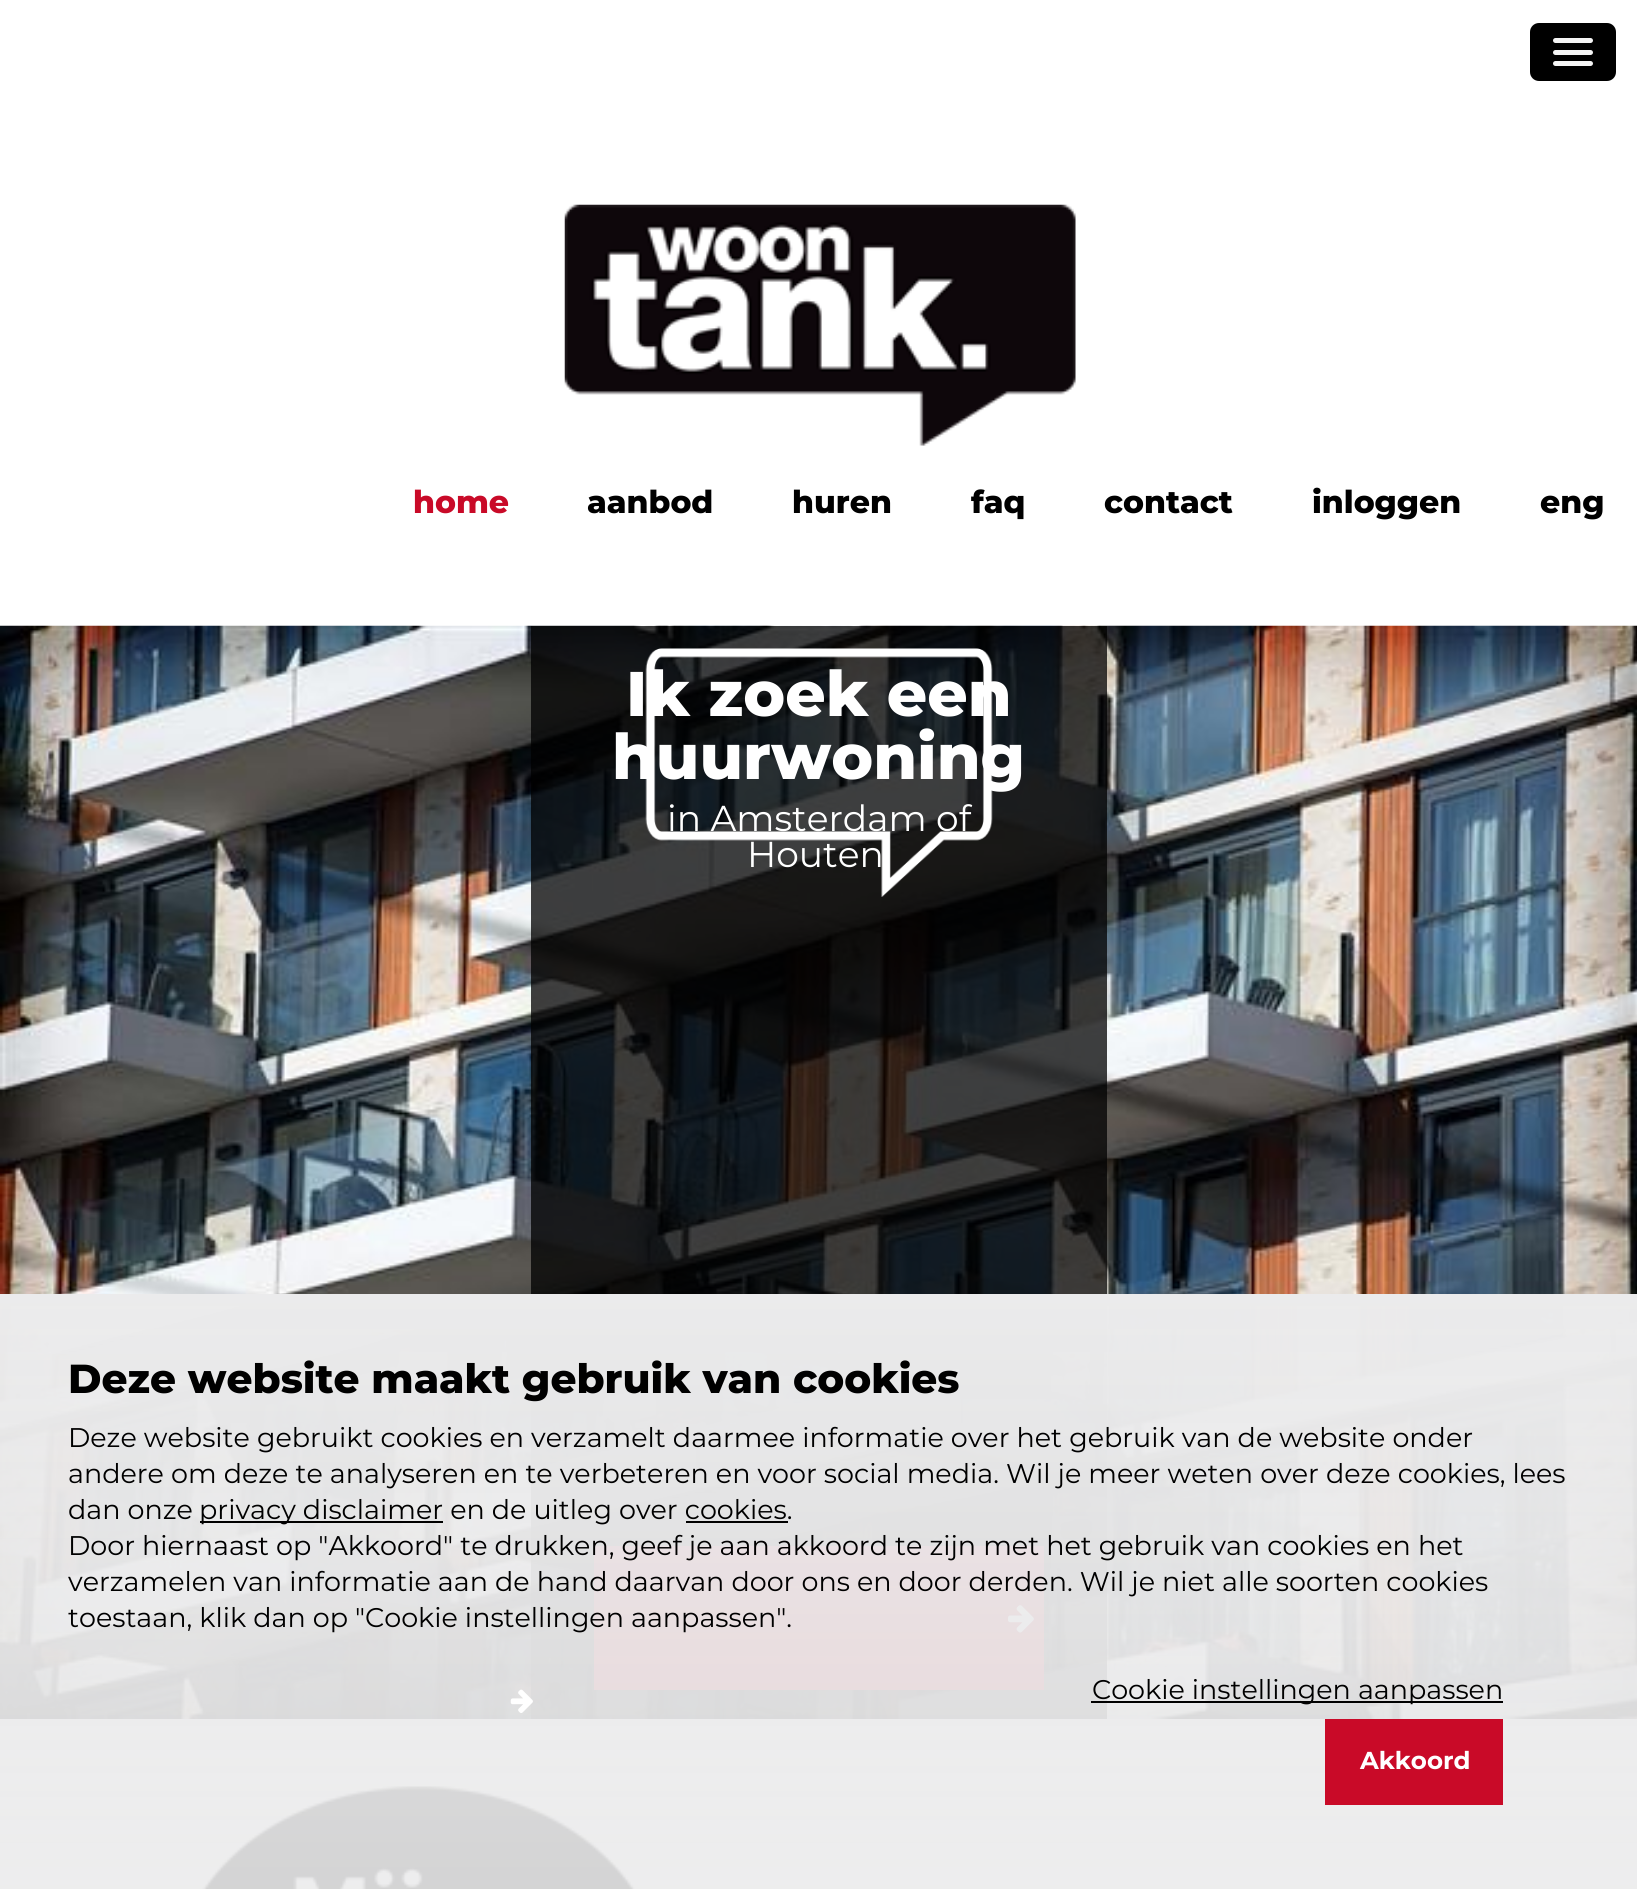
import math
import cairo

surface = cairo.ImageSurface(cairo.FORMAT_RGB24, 1637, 1889)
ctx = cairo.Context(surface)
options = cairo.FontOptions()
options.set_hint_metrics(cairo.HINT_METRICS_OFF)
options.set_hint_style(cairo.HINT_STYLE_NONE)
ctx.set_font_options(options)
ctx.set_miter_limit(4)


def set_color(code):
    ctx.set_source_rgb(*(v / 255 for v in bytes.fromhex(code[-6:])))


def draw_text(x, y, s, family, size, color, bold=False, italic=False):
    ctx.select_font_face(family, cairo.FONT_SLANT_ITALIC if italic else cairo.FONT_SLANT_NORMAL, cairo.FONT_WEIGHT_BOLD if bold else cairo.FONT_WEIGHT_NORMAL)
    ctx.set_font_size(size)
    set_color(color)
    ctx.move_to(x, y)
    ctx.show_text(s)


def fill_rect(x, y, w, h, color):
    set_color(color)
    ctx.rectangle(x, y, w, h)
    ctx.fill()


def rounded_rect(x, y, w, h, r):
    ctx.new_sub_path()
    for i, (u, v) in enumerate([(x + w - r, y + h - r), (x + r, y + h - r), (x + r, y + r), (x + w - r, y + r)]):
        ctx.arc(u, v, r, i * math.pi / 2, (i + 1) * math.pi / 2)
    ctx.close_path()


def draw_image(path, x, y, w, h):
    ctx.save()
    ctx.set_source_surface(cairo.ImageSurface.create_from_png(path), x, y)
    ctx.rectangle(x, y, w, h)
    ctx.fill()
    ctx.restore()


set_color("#ffffff")
ctx.paint()
set_color("#000000")
rounded_rect(1530, 23, 86, 58, 9)
ctx.fill()
set_color("#f5f5f5")
rounded_rect(1553, 38, 40, 5, 2.5)
ctx.fill()
rounded_rect(1553, 50, 40, 5, 2.5)
ctx.fill()
rounded_rect(1553, 61, 40, 5, 2.5)
ctx.fill()
draw_image("assets/img1.png", 564, 204, 512, 242)
draw_text(413, 513, "home", "Montserrat ExtraBold", 31.5, "#c90a28")
draw_text(587, 513, "aanbod", "Montserrat ExtraBold", 31.5, "#000000")
draw_text(792, 513, "huren", "Montserrat ExtraBold", 31.5, "#000000")
draw_text(971, 513, "faq", "Montserrat ExtraBold", 31.5, "#000000")
draw_text(1104, 513, "contact", "Montserrat ExtraBold", 31.5, "#000000")
draw_text(1312, 513, "inloggen", "Montserrat ExtraBold", 31.5, "#000000")
draw_text(1540, 513, "eng", "Montserrat ExtraBold", 31.5, "#000000")
draw_image("assets/img2.png", 0, 625, 1637, 1094)
ctx.set_source_rgba(0, 0, 0, 0.75)
ctx.rectangle(531, 626, 576, 1093)
ctx.fill()
draw_image("assets/img3.png", 645, 648, 348, 249)
draw_text(626, 716, "Ik zoek een", "Montserrat ExtraBold", 63, "#ffffff")
draw_text(612, 779, "huurwoning", "Montserrat ExtraBold", 63, "#ffffff")
draw_text(667, 831, "in Amsterdam of", "Montserrat", 36, "#ffffff")
draw_text(747, 867, "Houten", "Montserrat", 36, "#ffffff")
fill_rect(594, 1546, 450, 144, "#c90a28")
draw_image("assets/img4.png", 1008, 1605, 26, 28)
draw_image("assets/img5.png", 202, 1786, 434, 103)
gradient = cairo.LinearGradient(819, 1294, 819, 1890)
gradient.add_color_stop_rgba(0, 0.922, 0.922, 0.925, 1)
gradient.add_color_stop_rgba(1, 0.922, 0.922, 0.925, 0.9)
ctx.set_source(gradient)
ctx.rectangle(0, 1294, 1637, 595)
ctx.fill()
draw_text(68, 1393, "Deze website maakt gebruik van cookies", "Montserrat ExtraBold", 40.5, "#000000")
draw_text(68, 1447, "Deze website gebruikt cookies en verzamelt daarmee informatie over het gebruik van de website onder", "Montserrat", 27, "#000000")
draw_text(68, 1483, "andere om deze te analyseren en te verbeteren en voor social media. Wil je meer weten over deze cookies, lees", "Montserrat", 27, "#000000")
draw_text(68, 1519, "dan onze", "Montserrat", 27, "#000000")
fill_rect(200, 1521, 243, 2, "#000000")
draw_text(199, 1519, "privacy disclaimer en de uitleg over cookies.", "Montserrat", 27, "#000000")
fill_rect(686, 1521, 102, 2, "#000000")
draw_text(68, 1555, "Door hiernaast op \"Akkoord\" te drukken, geef je aan akkoord te zijn met het gebruik van cookies en het", "Montserrat", 27, "#000000")
draw_text(68, 1591, "verzamelen van informatie aan de hand daarvan door ons en door derden. Wil je niet alle soorten cookies", "Montserrat", 27, "#000000")
draw_text(68, 1627, "toestaan, klik dan op \"Cookie instellingen aanpassen\".", "Montserrat", 27, "#000000")
draw_image("assets/img6.png", 510, 1689, 23, 24)
fill_rect(1091, 1701, 412, 2, "#000000")
draw_text(1092, 1699, "Cookie instellingen aanpassen", "Montserrat", 27, "#000000")
fill_rect(1325, 1719, 178, 86, "#c90a28")
draw_text(1360, 1769, "Akkoord", "Montserrat", 24.5, "#ffffff", bold=True)
surface.write_to_png("output.png")
